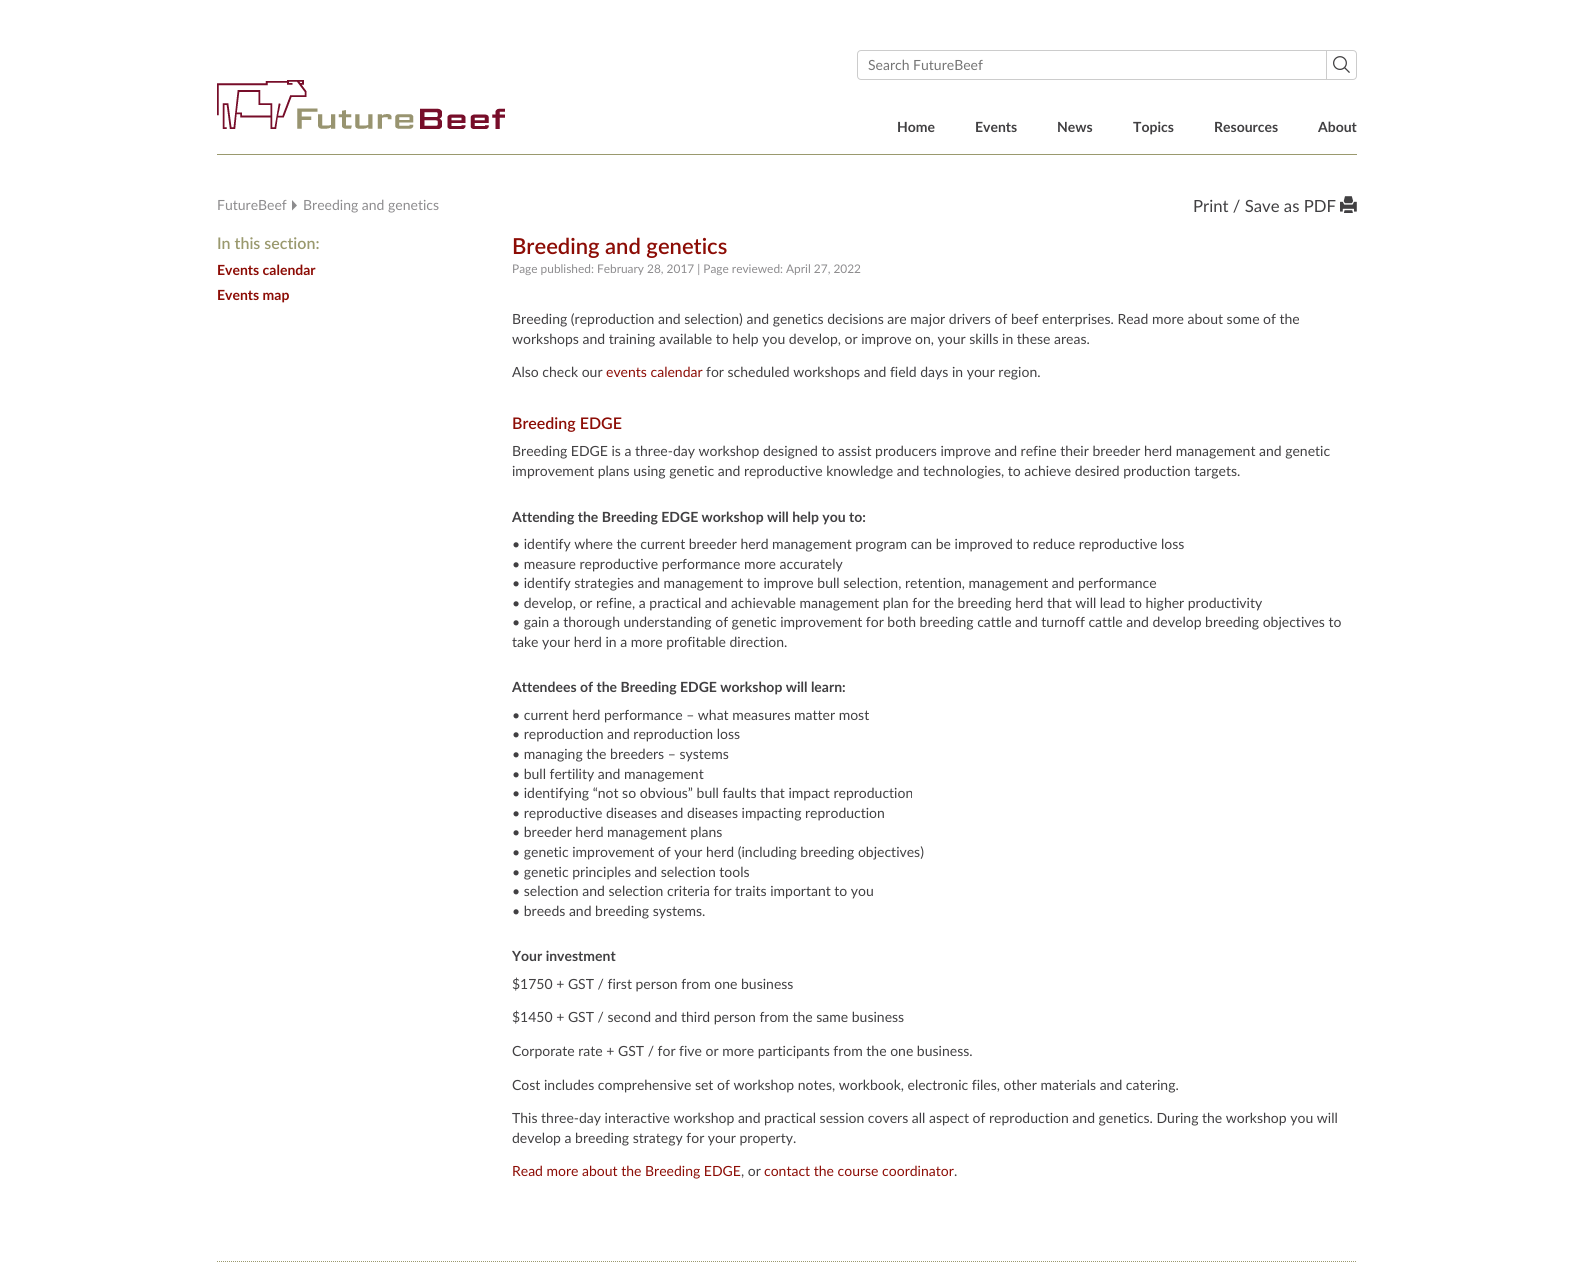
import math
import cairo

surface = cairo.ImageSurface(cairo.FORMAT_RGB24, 1574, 1271)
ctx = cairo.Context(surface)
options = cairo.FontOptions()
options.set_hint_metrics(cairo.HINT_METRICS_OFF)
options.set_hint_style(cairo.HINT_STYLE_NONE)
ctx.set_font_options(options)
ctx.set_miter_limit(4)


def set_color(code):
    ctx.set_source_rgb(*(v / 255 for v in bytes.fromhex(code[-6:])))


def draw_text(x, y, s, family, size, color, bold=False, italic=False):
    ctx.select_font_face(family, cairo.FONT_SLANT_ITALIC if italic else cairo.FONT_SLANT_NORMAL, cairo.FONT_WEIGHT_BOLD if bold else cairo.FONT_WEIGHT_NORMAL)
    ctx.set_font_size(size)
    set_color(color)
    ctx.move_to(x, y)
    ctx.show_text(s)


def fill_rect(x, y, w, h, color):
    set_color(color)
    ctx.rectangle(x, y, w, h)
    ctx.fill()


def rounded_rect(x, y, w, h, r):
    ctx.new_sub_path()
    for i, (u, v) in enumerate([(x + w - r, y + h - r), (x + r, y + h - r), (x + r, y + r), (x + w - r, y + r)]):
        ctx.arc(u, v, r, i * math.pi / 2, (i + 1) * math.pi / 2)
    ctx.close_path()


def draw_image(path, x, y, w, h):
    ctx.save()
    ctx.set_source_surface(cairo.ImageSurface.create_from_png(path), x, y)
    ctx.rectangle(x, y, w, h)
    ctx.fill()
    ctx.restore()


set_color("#ffffff")
ctx.paint()
rounded_rect(857.5, 50.5, 499, 29, 3.5)
set_color("#cccccc")
ctx.set_line_width(1)
ctx.stroke()
draw_text(868, 70, "Search FutureBeef", "Lato", 14, "#757575")
fill_rect(1326, 51, 1, 28, "#cccccc")
draw_image("assets/img1.png", 1333, 56, 17, 17)
fill_rect(217, 154, 1140, 1, "#9a996e")
draw_image("assets/img2.png", 217, 80, 288, 49)
draw_text(897, 132, "Home", "Lato", 14, "#414042", bold=True)
draw_text(975, 132, "Events", "Lato", 14, "#414042", bold=True)
draw_text(1057, 132, "News", "Lato", 14, "#414042", bold=True)
draw_text(1133, 132, "Topics", "Lato", 14, "#414042", bold=True)
draw_text(1214, 132, "Resources", "Lato", 14, "#414042", bold=True)
draw_text(1318, 132, "About", "Lato", 14, "#414042", bold=True)
draw_text(217, 210, "FutureBeef", "Lato", 14, "#8d8c8e")
ctx.new_path()
ctx.move_to(292, 200)
ctx.line_to(297, 205.5)
ctx.line_to(292, 210.5)
ctx.close_path()
ctx.fill()
draw_text(303, 210, "Breeding and genetics", "Lato", 14, "#8d8c8e")
draw_text(1193, 212, "Print / Save as PDF", "Lato", 16.75, "#414042")
draw_image("assets/img3.png", 1340, 196, 17, 17)
draw_text(217, 249, "In this section:", "Lato SemiBold", 16, "#9a996e")
draw_text(217, 275, "Events calendar", "Lato", 14, "#8c0c05", bold=True)
draw_text(217, 300, "Events map", "Lato", 14, "#8c0c05", bold=True)
draw_text(512, 254, "Breeding and genetics", "Lato SemiBold", 22, "#8c0c05")
draw_text(512, 273, "Page published: February 28, 2017 | Page reviewed: April 27, 2022", "Lato", 11.9, "#8d8c8e")
draw_text(512, 324, "Breeding (reproduction and selection) and genetics decisions are major drivers of beef enterprises. Read more about some of the", "Lato", 14, "#414042")
draw_text(512, 344, "workshops and training available to help you develop, or improve on, your skills in these areas.", "Lato", 14, "#414042")
draw_text(512, 377, "Also check our", "Lato", 14, "#414042")
draw_text(606, 377, "events calendar", "Lato", 14, "#8c0c05")
draw_text(706, 377, "for scheduled workshops and field days in your region.", "Lato", 14, "#414042")
draw_text(512, 429, "Breeding EDGE", "Lato SemiBold", 16, "#8c0c05")
draw_text(512, 456, "Breeding EDGE is a three-day workshop designed to assist producers improve and refine their breeder herd management and genetic", "Lato", 14, "#414042")
draw_text(512, 476, "improvement plans using genetic and reproductive knowledge and technologies, to achieve desired production targets.", "Lato", 14, "#414042")
draw_text(512, 522, "Attending the Breeding EDGE workshop will help you to:", "Lato", 14, "#414042", bold=True)
draw_text(512, 549, "• identify where the current breeder herd management program can be improved to reduce reproductive loss", "Lato", 14, "#414042")
draw_text(512, 569, "• measure reproductive performance more accurately", "Lato", 14, "#414042")
draw_text(512, 588, "• identify strategies and management to improve bull selection, retention, management and performance", "Lato", 14, "#414042")
draw_text(512, 608, "• develop, or refine, a practical and achievable management plan for the breeding herd that will lead to higher productivity", "Lato", 14, "#414042")
draw_text(512, 627, "• gain a thorough understanding of genetic improvement for both breeding cattle and turnoff cattle and develop breeding objectives to", "Lato", 14, "#414042")
draw_text(512, 647, "take your herd in a more profitable direction.", "Lato", 14, "#414042")
draw_text(512, 692, "Attendees of the Breeding EDGE workshop will learn:", "Lato", 14, "#414042", bold=True)
draw_text(512, 720, "• current herd performance – what measures matter most", "Lato", 14, "#414042")
draw_text(512, 739, "• reproduction and reproduction loss", "Lato", 14, "#414042")
draw_text(512, 759, "• managing the breeders – systems", "Lato", 14, "#414042")
draw_text(512, 779, "• bull fertility and management", "Lato", 14, "#414042")
draw_text(512, 798, "• identifying “not so obvious” bull faults that impact reproduction", "Lato", 14, "#414042")
draw_text(512, 818, "• reproductive diseases and diseases impacting reproduction", "Lato", 14, "#414042")
draw_text(512, 837, "• breeder herd management plans", "Lato", 14, "#414042")
draw_text(512, 857, "• genetic improvement of your herd (including breeding objectives)", "Lato", 14, "#414042")
draw_text(512, 877, "• genetic principles and selection tools", "Lato", 14, "#414042")
draw_text(512, 896, "• selection and selection criteria for traits important to you", "Lato", 14, "#414042")
draw_text(512, 916, "• breeds and breeding systems.", "Lato", 14, "#414042")
draw_text(512, 961, "Your investment", "Lato", 14, "#414042", bold=True)
draw_text(512, 989, "$1750 + GST / first person from one business", "Lato", 14, "#414042")
draw_text(512, 1022, "$1450 + GST / second and third person from the same business", "Lato", 14, "#414042")
draw_text(512, 1056, "Corporate rate + GST / for five or more participants from the one business.", "Lato", 14, "#414042")
draw_text(512, 1090, "Cost includes comprehensive set of workshop notes, workbook, electronic files, other materials and catering.", "Lato", 14, "#414042")
draw_text(512, 1123, "This three-day interactive workshop and practical session covers all aspect of reproduction and genetics. During the workshop you will", "Lato", 14, "#414042")
draw_text(512, 1143, "develop a breeding strategy for your property.", "Lato", 14, "#414042")
draw_text(512, 1176, "Read more about the Breeding EDGE", "Lato", 14, "#8c0c05")
draw_text(741, 1176, ", or", "Lato", 14, "#414042")
draw_text(764, 1176, "contact the course coordinator", "Lato", 14, "#8c0c05")
draw_text(954, 1176, ".", "Lato", 14, "#414042")
ctx.new_path()
ctx.move_to(217, 1261.5)
ctx.line_to(1357, 1261.5)
set_color("#9a996e")
ctx.set_dash([1, 1])
ctx.stroke()
surface.write_to_png("output.png")
